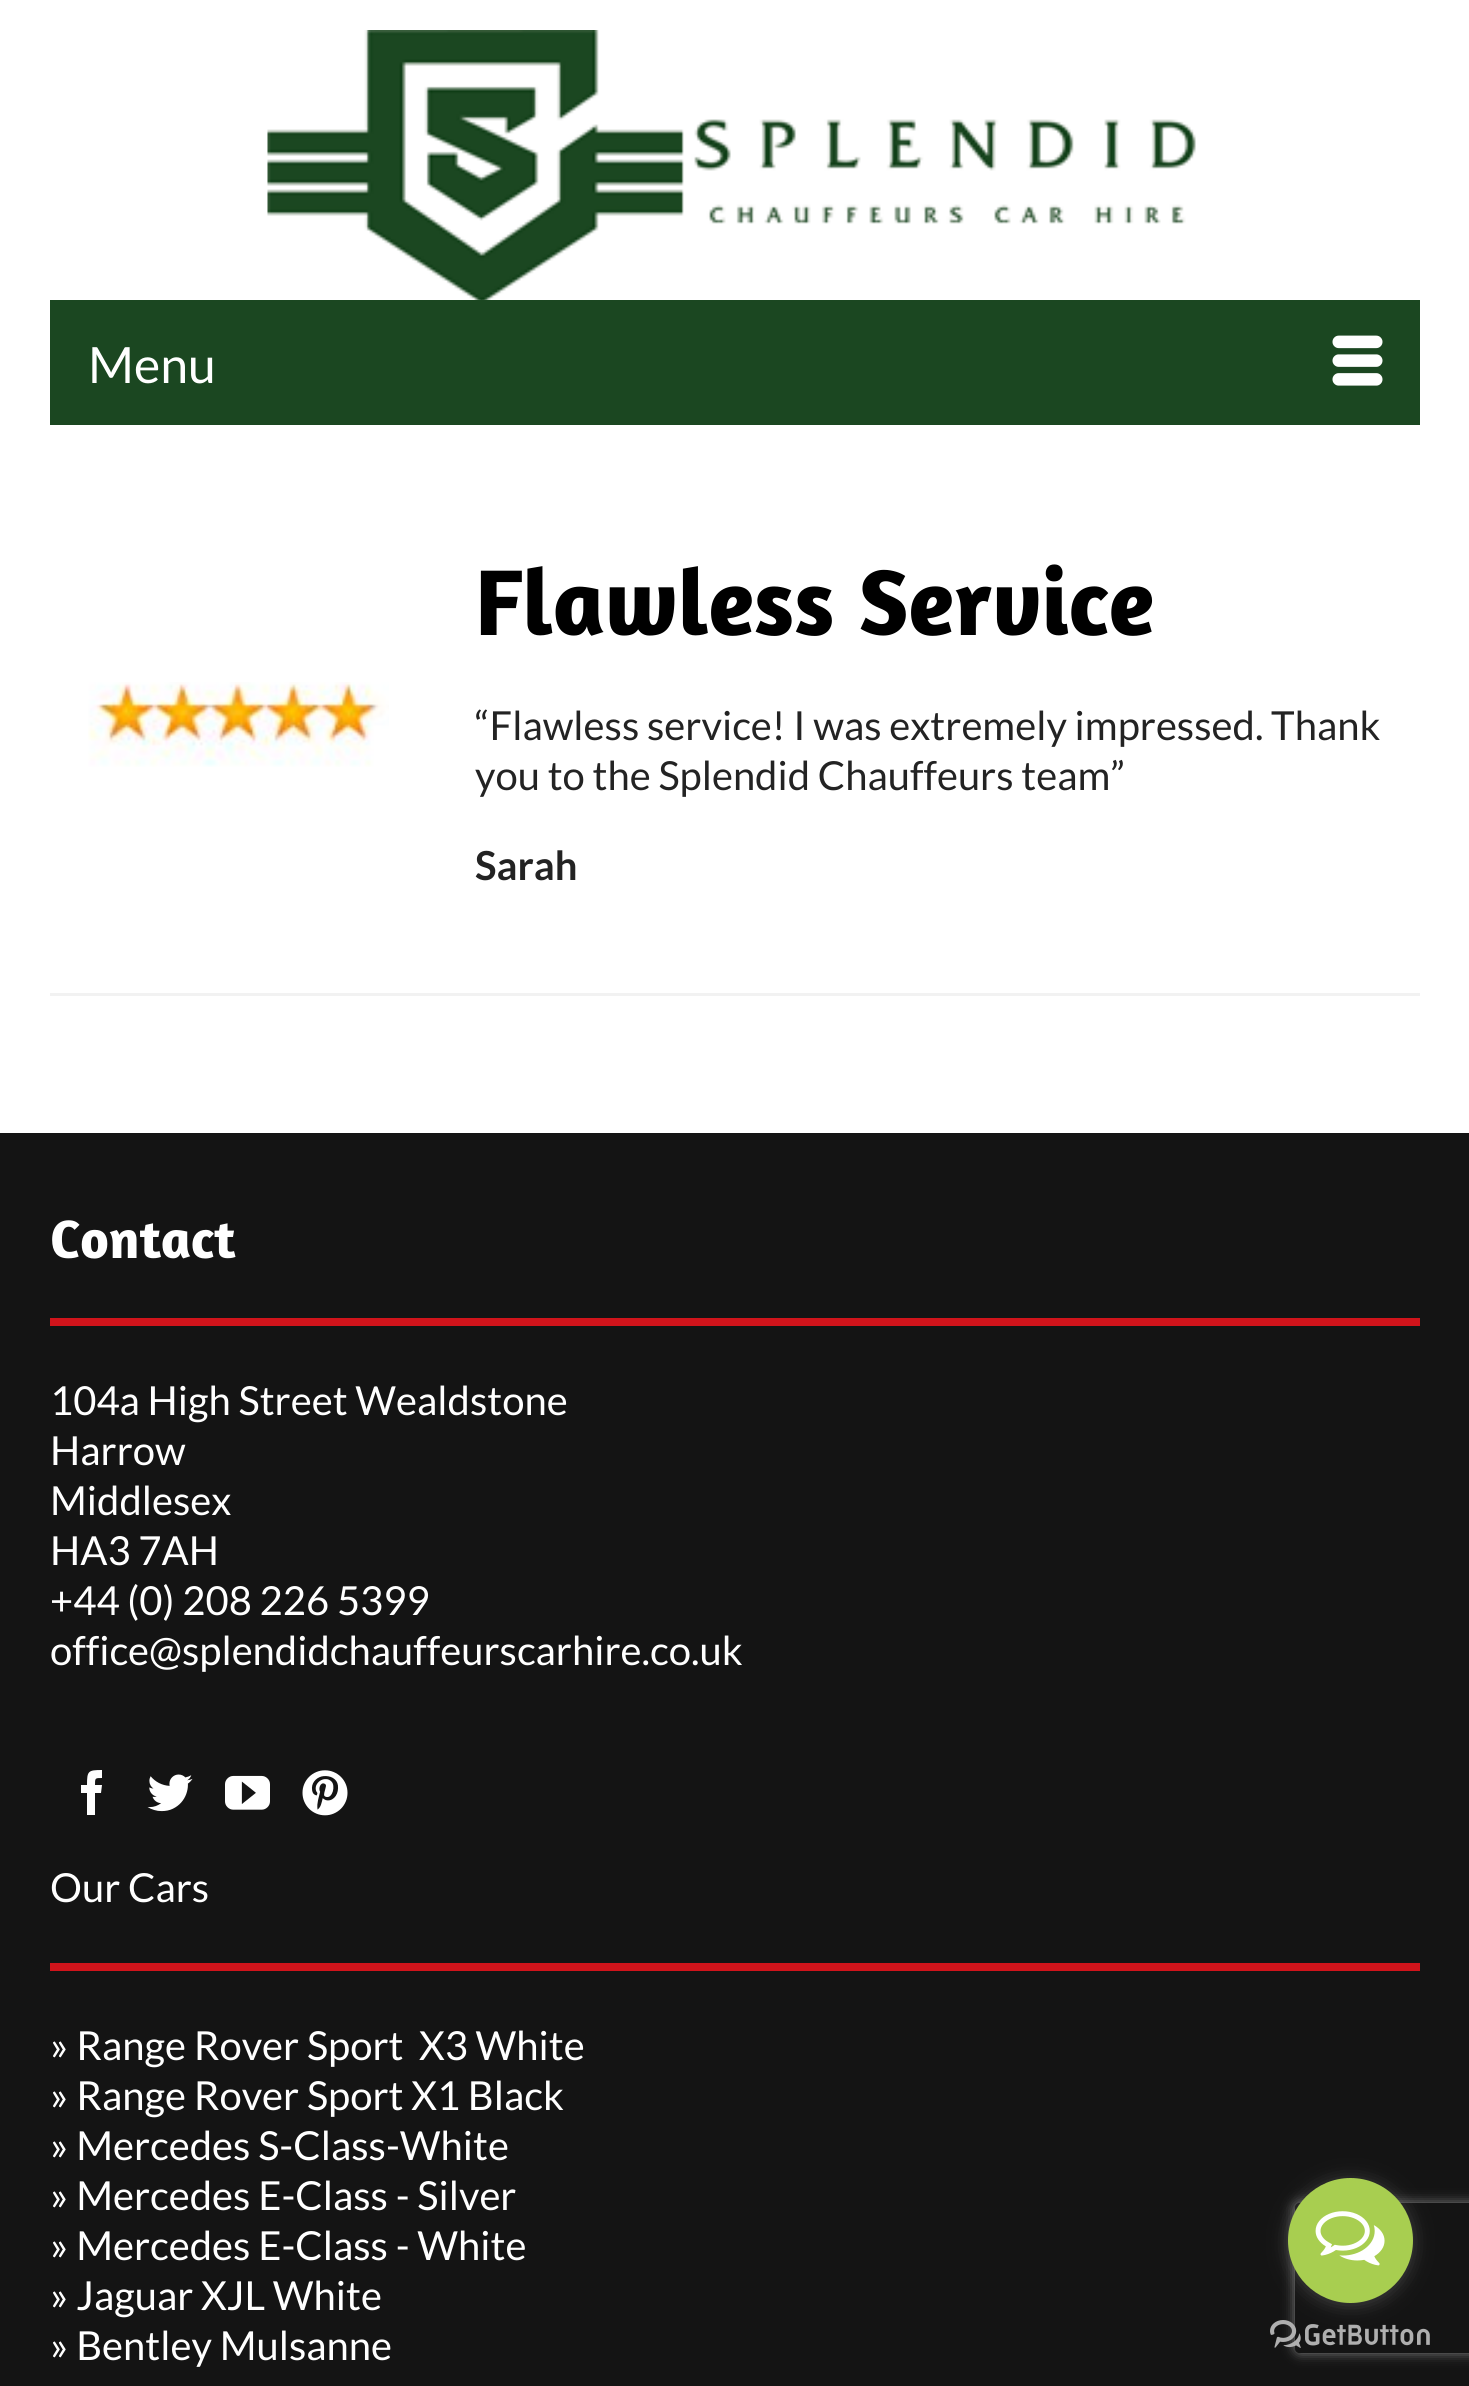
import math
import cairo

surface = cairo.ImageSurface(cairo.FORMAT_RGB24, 1469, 2386)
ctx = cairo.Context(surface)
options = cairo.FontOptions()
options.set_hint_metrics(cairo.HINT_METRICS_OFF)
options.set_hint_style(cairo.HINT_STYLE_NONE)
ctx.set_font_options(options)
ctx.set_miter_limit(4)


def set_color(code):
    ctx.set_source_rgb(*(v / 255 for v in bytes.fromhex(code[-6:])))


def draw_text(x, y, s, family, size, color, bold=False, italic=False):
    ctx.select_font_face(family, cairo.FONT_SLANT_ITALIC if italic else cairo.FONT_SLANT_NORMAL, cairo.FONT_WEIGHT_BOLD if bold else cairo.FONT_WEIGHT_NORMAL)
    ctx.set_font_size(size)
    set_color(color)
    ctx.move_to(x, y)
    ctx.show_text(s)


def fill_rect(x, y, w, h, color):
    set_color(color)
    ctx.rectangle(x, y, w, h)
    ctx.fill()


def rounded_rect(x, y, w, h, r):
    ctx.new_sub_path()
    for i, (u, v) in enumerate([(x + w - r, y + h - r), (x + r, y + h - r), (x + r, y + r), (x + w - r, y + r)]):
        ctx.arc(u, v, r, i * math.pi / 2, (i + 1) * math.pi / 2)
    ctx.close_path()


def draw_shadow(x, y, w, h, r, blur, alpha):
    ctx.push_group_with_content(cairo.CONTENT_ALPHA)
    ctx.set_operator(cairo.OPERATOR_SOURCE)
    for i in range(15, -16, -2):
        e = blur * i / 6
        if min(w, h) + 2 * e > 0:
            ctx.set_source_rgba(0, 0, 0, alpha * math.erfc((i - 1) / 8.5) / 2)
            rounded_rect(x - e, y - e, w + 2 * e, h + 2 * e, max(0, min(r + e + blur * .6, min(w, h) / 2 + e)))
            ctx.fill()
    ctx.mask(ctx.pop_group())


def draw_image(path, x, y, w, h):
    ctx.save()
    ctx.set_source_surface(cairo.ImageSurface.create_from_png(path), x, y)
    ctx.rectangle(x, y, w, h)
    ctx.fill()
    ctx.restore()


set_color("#ffffff")
ctx.paint()
draw_image("assets/img1.png", 267, 30, 929, 270)
fill_rect(50, 300, 1370, 125, "#1b4721")
draw_text(88, 383, "Menu", "Lato", 50, "#ffffff")
draw_image("assets/img2.png", 1332, 335, 51, 51)
draw_text(475, 635, "Flawless Service", "Amaranth", 95, "#000000", bold=True)
draw_image("assets/img3.png", 88, 682, 301, 85)
draw_text(475, 740, "“Flawless service! I was extremely impressed. Thank", "Lato", 40, "#232323")
draw_text(475, 790, "you to the Splendid Chauffeurs team”", "Lato", 40, "#232323")
draw_text(475, 880, "Sarah", "Lato", 40, "#232323", bold=True)
fill_rect(50, 993, 1370, 3, "#f2f2f2")
fill_rect(0, 1133, 1469, 1253, "#141414")
draw_text(50, 1258, "Contact", "Amaranth", 55, "#ffffff", bold=True)
fill_rect(50, 1318, 1370, 8, "#d0141b")
draw_text(50, 1415, "104a High Street Wealdstone", "Lato", 40, "#ffffff")
draw_text(50, 1465, "Harrow", "Lato", 40, "#ffffff")
draw_text(50, 1515, "Middlesex", "Lato", 40, "#ffffff")
draw_text(50, 1565, "HA3 7AH", "Lato", 40, "#ffffff")
draw_text(50, 1615, "+44 (0) 208 226 5399", "Lato", 40, "#ffffff")
draw_text(50, 1665, "office@splendidchauffeurscarhire.co.uk", "Lato", 40, "#ffffff")
ctx.new_path()
ctx.move_to(95, 1815)
ctx.line_to(87, 1815)
ctx.line_to(87, 1793)
ctx.line_to(81, 1793)
ctx.line_to(81, 1785)
ctx.line_to(87, 1785)
ctx.curve_to(87, 1771, 88, 1770, 102, 1770)
ctx.line_to(102, 1778)
ctx.curve_to(95, 1778, 95, 1778, 95, 1785)
ctx.line_to(102, 1785)
ctx.line_to(101, 1793)
ctx.line_to(95, 1793)
ctx.close_path()
ctx.fill()
draw_image("assets/img4.png", 147, 1774, 46, 38)
draw_image("assets/img5.png", 225, 1775, 45, 35)
draw_image("assets/img6.png", 302, 1770, 46, 46)
draw_text(50, 1902, "Our Cars", "Lato", 40, "#ffffff")
fill_rect(50, 1963, 1370, 8, "#d0141b")
draw_text(50, 2060, "» Range Rover Sport  X3 White", "Lato", 40, "#ffffff")
draw_text(50, 2110, "» Range Rover Sport X1 Black", "Lato", 40, "#ffffff")
draw_text(50, 2160, "» Mercedes S-Class-White", "Lato", 40, "#ffffff")
draw_text(50, 2210, "» Mercedes E-Class - Silver", "Lato", 40, "#ffffff")
draw_text(50, 2260, "» Mercedes E-Class - White", "Lato", 40, "#ffffff")
draw_text(50, 2310, "» Jaguar XJL White", "Lato", 40, "#ffffff")
draw_text(50, 2360, "» Bentley Mulsanne", "Lato", 40, "#ffffff")
ctx.save()
ctx.set_fill_rule(cairo.FILL_RULE_EVEN_ODD)
ctx.new_path()
ctx.move_to(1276, 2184)
ctx.line_to(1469, 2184)
ctx.line_to(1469, 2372)
ctx.line_to(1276, 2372)
ctx.close_path()
ctx.move_to(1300, 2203)
ctx.line_to(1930, 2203)
ctx.curve_to(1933, 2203, 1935, 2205, 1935, 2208)
ctx.line_to(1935, 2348)
ctx.curve_to(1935, 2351, 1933, 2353, 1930, 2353)
ctx.line_to(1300, 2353)
ctx.curve_to(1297, 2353, 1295, 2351, 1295, 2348)
ctx.line_to(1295, 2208)
ctx.curve_to(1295, 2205, 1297, 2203, 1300, 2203)
ctx.close_path()
ctx.clip()
set_color("#808080")
draw_shadow(1295, 2203, 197, 150, 5, 6, 1)
ctx.restore()
draw_image("assets/img8.png", 1270, 2320, 160, 28)
set_color("#888888")
draw_shadow(1288, 2180, 125, 125, 62.5, 9, 0.4)
set_color("#a8ce50")
ctx.arc(1350.5, 2240.5, 62.5, 0, 2 * math.pi)
ctx.fill()
draw_image("assets/img7.png", 1315, 2211, 70, 55)
surface.write_to_png("output.png")
